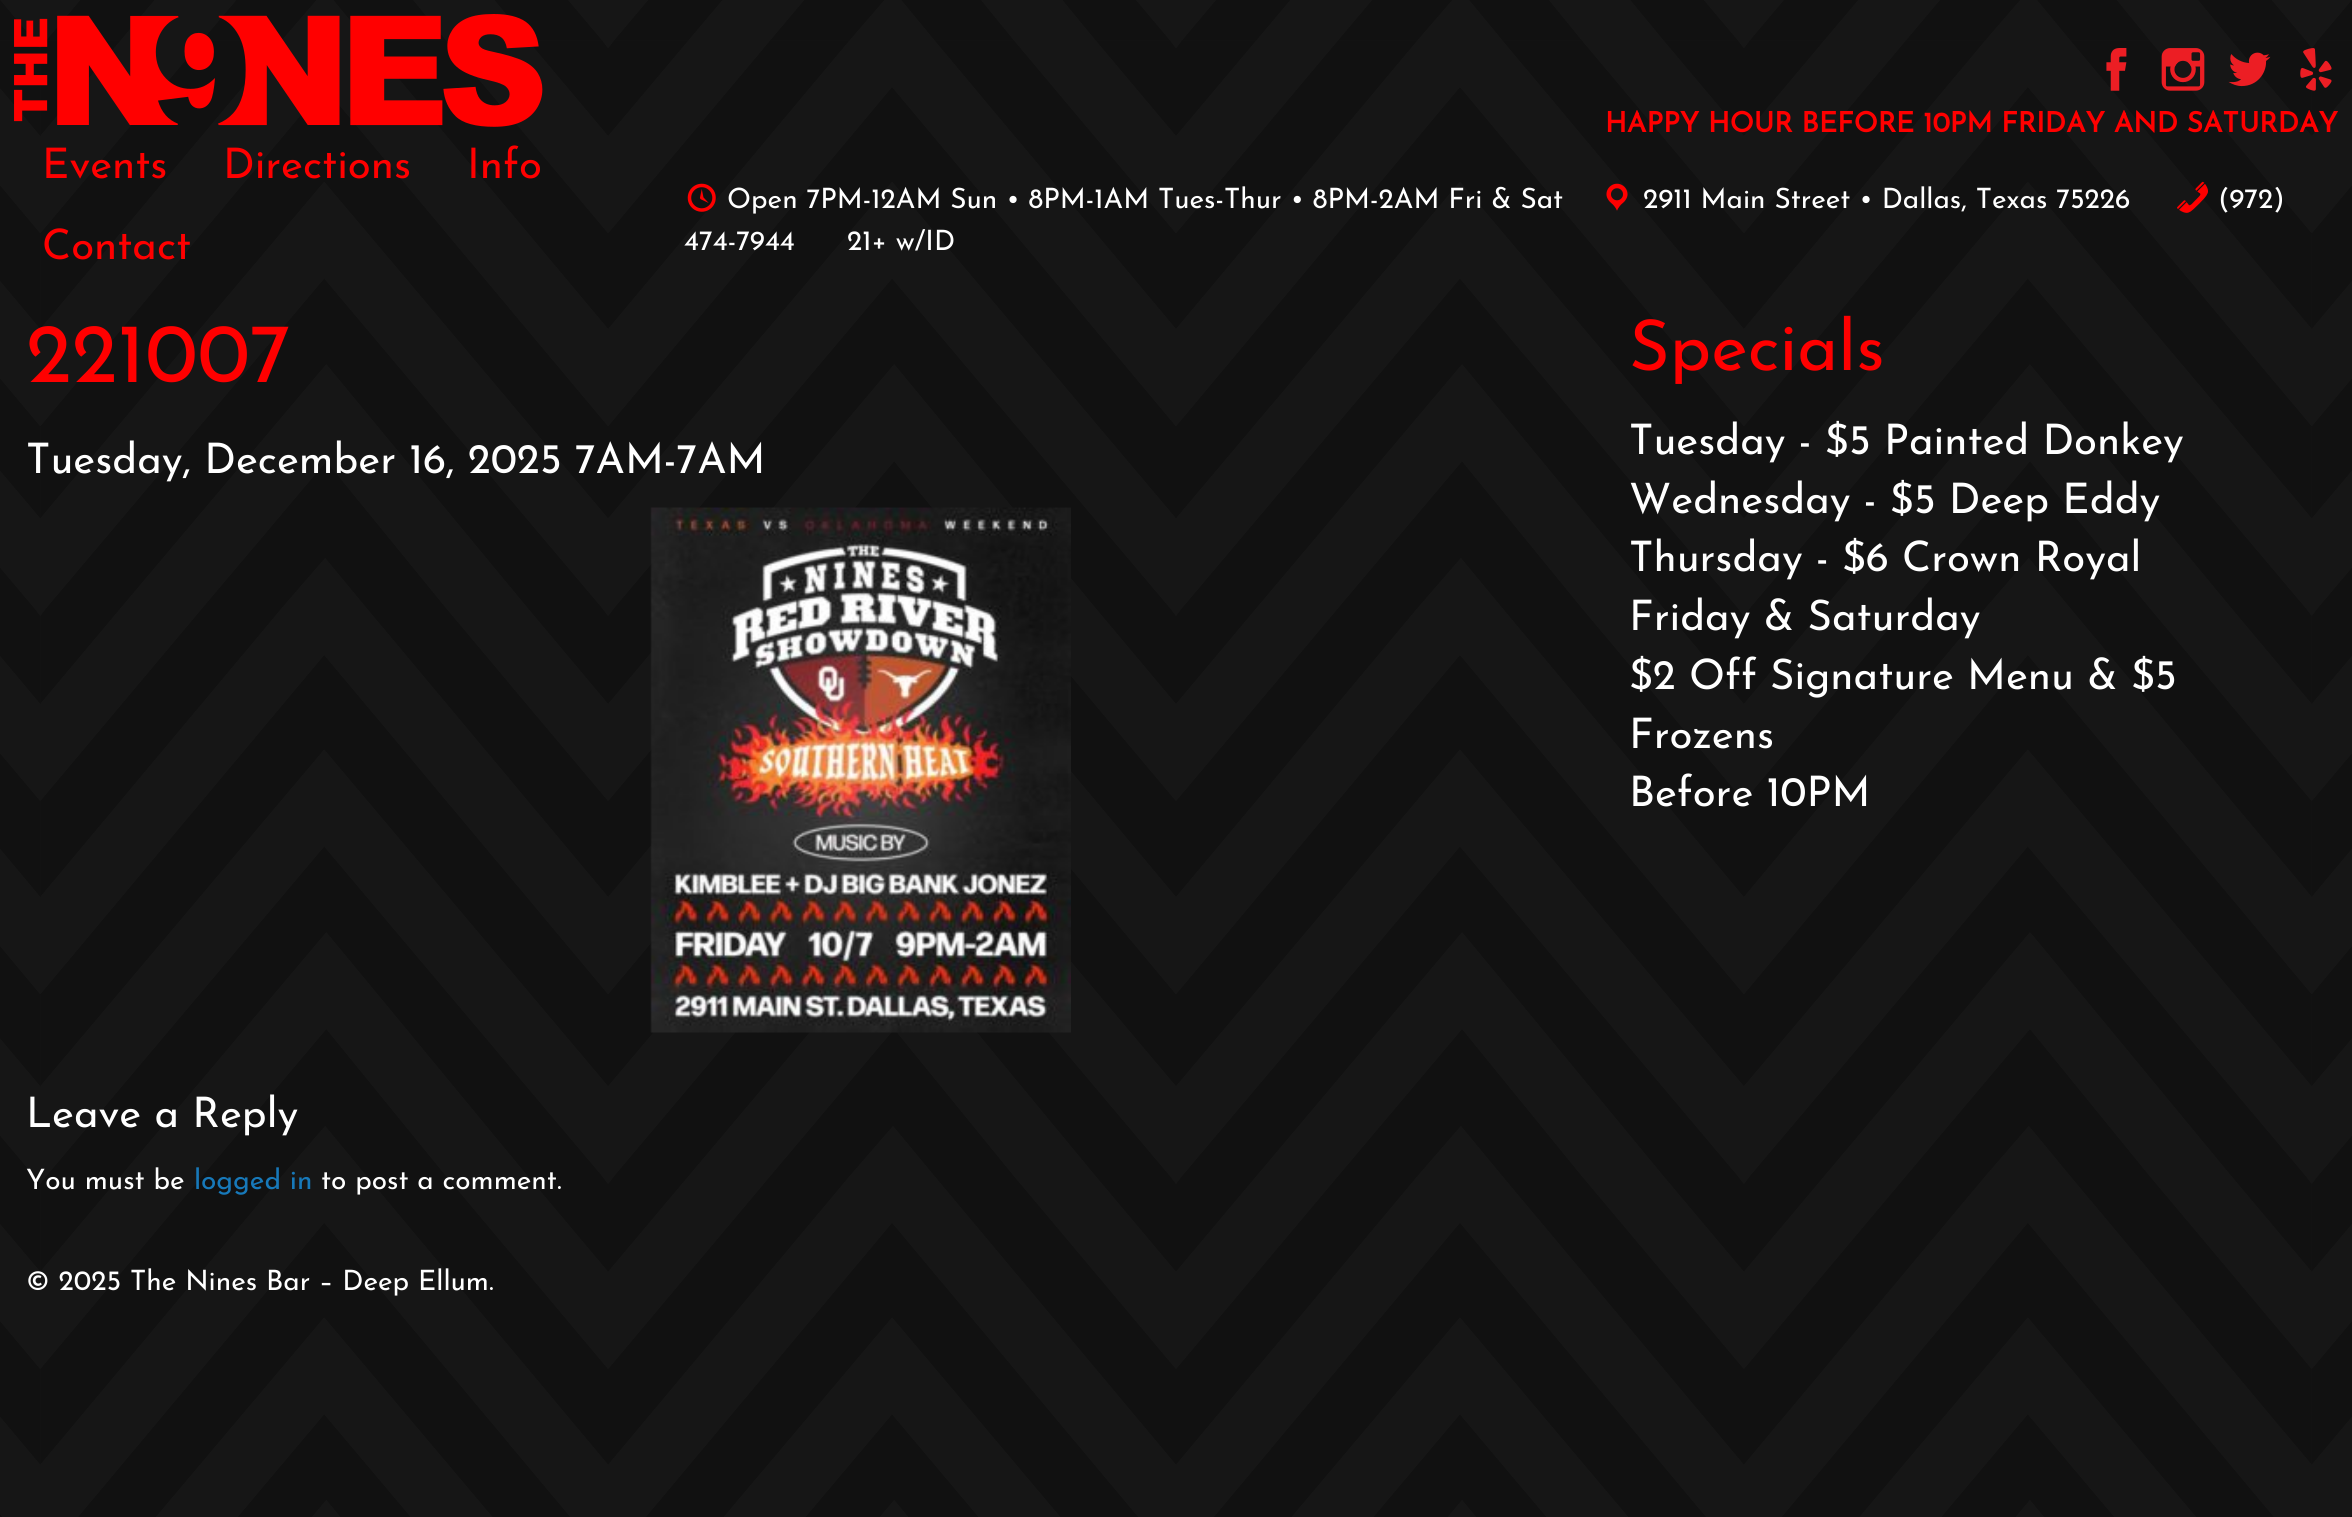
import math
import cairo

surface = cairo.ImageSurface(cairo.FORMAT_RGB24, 2352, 1517)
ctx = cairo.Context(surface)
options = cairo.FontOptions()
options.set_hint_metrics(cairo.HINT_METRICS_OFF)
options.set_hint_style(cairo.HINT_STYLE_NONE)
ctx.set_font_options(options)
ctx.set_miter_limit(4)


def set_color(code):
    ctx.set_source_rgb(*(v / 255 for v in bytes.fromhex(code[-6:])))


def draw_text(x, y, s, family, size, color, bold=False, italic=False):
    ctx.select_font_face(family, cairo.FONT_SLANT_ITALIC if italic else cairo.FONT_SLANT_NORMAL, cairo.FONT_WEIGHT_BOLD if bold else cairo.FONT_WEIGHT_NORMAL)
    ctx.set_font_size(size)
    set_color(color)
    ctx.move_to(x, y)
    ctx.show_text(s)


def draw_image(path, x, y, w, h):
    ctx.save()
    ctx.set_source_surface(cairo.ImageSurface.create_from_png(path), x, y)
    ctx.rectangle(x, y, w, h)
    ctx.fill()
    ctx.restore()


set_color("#ffffff")
ctx.paint()
draw_image("assets/img1.png", 0, 0, 2352, 1517)
draw_image("assets/img2.png", 14, 14, 529, 113)
draw_text(42, 178, "Events", "Josefin Sans Thin", 42, "#ff0000")
draw_text(223, 178, "Directions", "Josefin Sans Thin", 42, "#ff0000")
draw_text(467, 178, "Info", "Josefin Sans Thin", 42, "#ff0000")
draw_text(42, 259, "Contact", "Josefin Sans Thin", 42, "#ff0000")
draw_image("assets/img3.png", 2106, 48, 21, 43)
draw_image("assets/img4.png", 2161, 48, 44, 43)
draw_image("assets/img5.png", 2228, 52, 43, 35)
draw_image("assets/img6.png", 2300, 48, 32, 43)
draw_text(1605, 132, "HAPPY HOUR BEFORE 10PM FRIDAY AND SATURDAY", "Josefin Sans", 28, "#ff0000", bold=True)
draw_image("assets/img7.png", 687, 183, 29, 29)
draw_image("assets/img8.png", 2177, 181, 31, 32)
draw_text(2218, 208, "(972)", "Josefin Sans Thin", 28, "#ffffff")
draw_text(684, 250, "474-7944", "Josefin Sans Thin", 28, "#ffffff")
draw_text(727, 208, "Open 7PM-12AM Sun • 8PM-1AM Tues-Thur • 8PM-2AM Fri & Sat", "Josefin Sans Thin", 28, "#ffffff")
draw_image("assets/img9.png", 1606, 183, 22, 28)
draw_text(1643, 208, "2911 Main Street • Dallas, Texas 75226", "Josefin Sans Thin", 28, "#ffffff")
draw_text(847, 250, "21+ w/ID", "Josefin Sans Thin", 28, "#ffffff")
draw_text(26, 382, "221007", "Josefin Sans Thin", 84, "#ff0000")
draw_text(26, 473, "Tuesday, December 16, 2025 7AM-7AM", "Josefin Sans Thin", 42, "#ffffff")
draw_image("assets/img10.png", 650, 507, 421, 526)
draw_text(26, 1127, "Leave a Reply", "Josefin Sans Thin", 42, "#ffffff")
draw_text(26, 1189, "You must be", "Josefin Sans Thin", 28, "#ffffff")
draw_text(194, 1189, "logged in", "Josefin Sans Thin", 28, "#1779ba")
draw_text(321, 1189, "to post a comment.", "Josefin Sans Thin", 28, "#ffffff")
draw_text(1629, 370, "Specials", "Josefin Sans Thin", 70, "#ff0000")
draw_text(1629, 454, "Tuesday - $5 Painted Donkey", "Josefin Sans Thin", 42, "#ffffff")
draw_text(1629, 513, "Wednesday - $5 Deep Eddy", "Josefin Sans Thin", 42, "#ffffff")
draw_text(1629, 571, "Thursday - $6 Crown Royal", "Josefin Sans Thin", 42, "#ffffff")
draw_text(1629, 630, "Friday & Saturday", "Josefin Sans Thin", 42, "#ffffff")
draw_text(1629, 689, "$2 Off Signature Menu & $5", "Josefin Sans Thin", 42, "#ffffff")
draw_text(1629, 748, "Frozens", "Josefin Sans Thin", 42, "#ffffff")
draw_text(1629, 806, "Before 10PM", "Josefin Sans Thin", 42, "#ffffff")
draw_text(26, 1290, "© 2025 The Nines Bar – Deep Ellum.", "Josefin Sans Thin", 28, "#ffffff")
surface.write_to_png("output.png")
